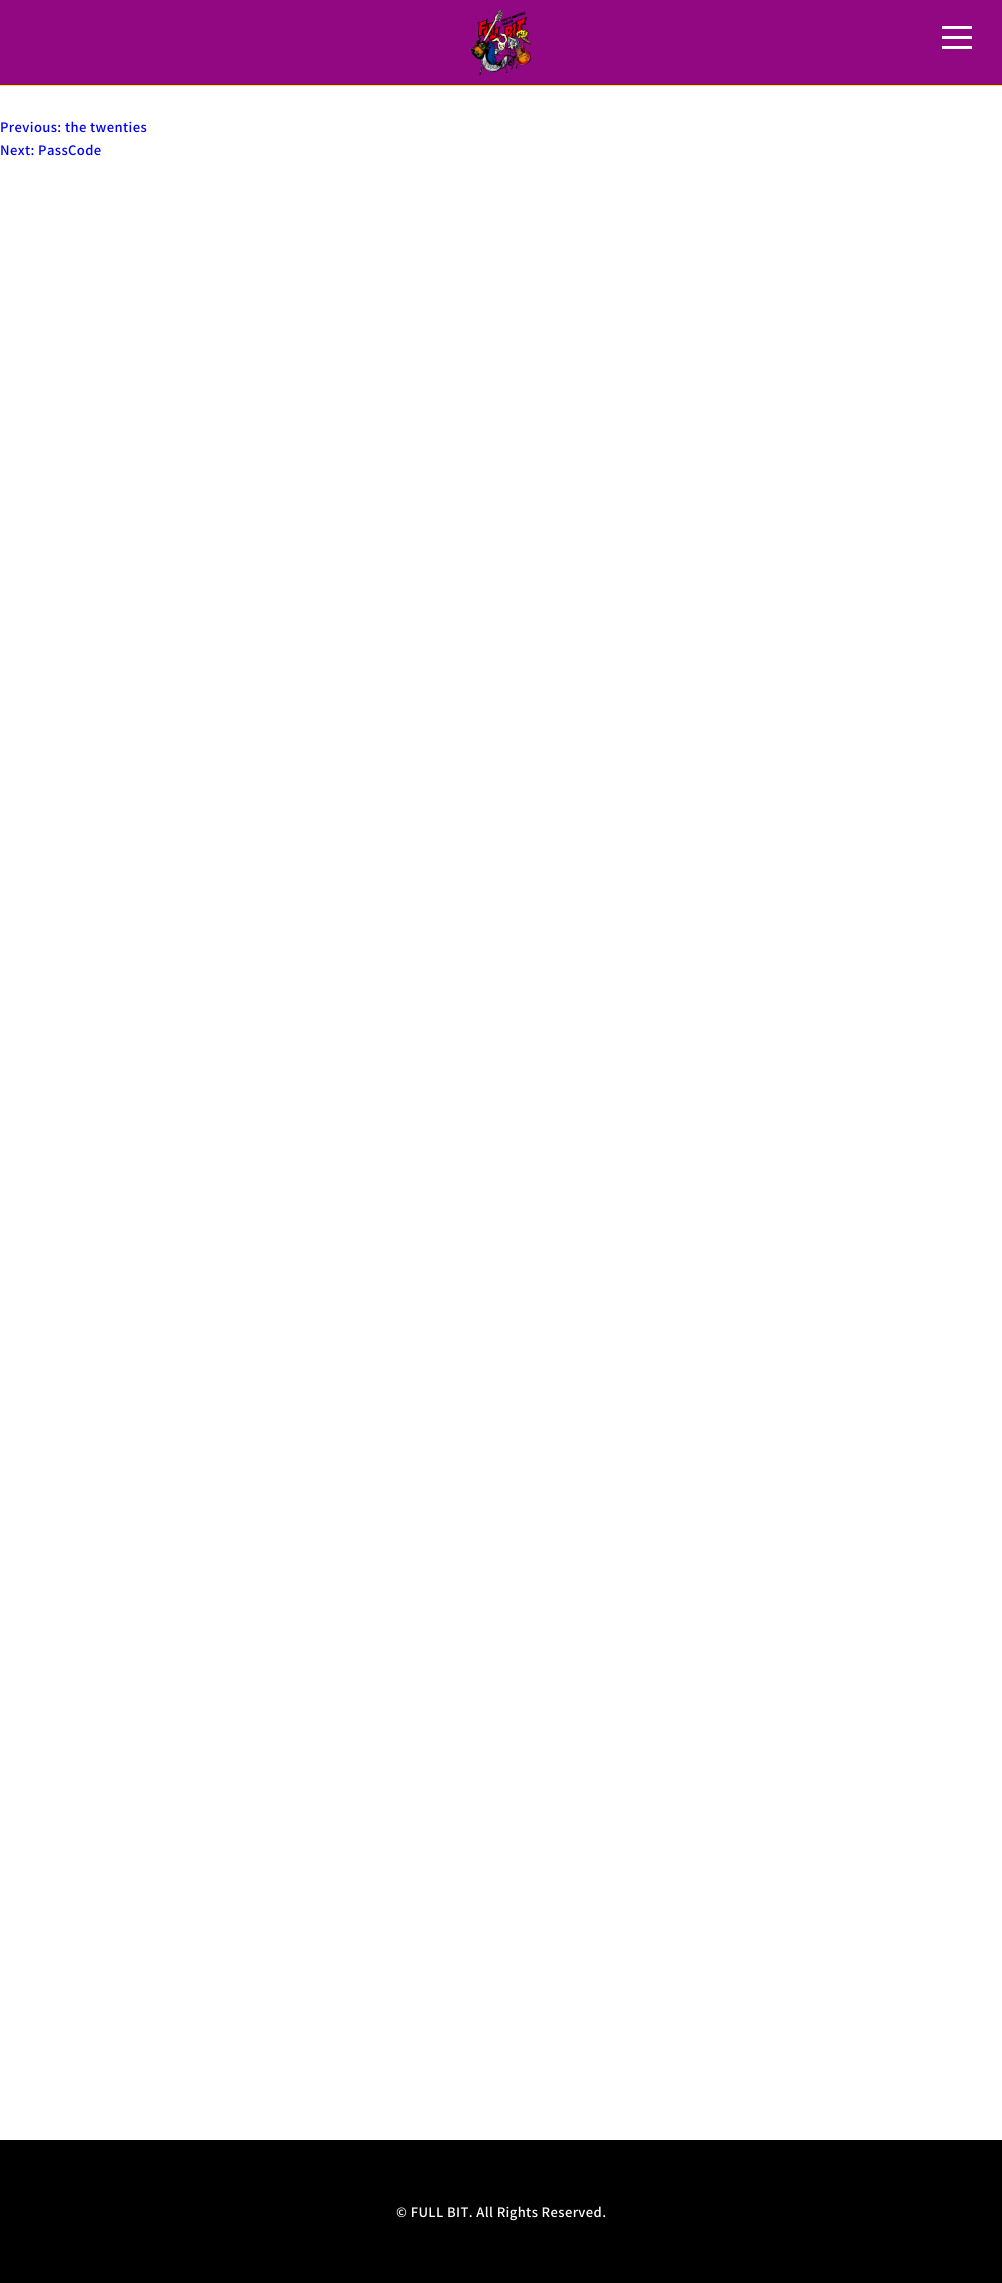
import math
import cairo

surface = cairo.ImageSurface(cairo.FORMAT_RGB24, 1002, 2283)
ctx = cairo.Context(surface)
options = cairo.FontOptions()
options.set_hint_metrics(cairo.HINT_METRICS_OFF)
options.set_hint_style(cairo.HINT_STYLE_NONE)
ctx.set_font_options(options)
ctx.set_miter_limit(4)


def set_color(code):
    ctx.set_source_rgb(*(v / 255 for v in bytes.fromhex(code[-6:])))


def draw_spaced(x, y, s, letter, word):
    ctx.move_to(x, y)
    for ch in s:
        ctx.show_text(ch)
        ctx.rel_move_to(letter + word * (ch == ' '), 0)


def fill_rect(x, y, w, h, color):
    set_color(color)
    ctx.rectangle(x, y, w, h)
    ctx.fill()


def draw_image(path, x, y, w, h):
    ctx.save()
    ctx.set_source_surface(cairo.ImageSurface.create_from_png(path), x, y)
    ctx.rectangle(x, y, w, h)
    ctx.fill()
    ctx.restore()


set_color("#ffffff")
ctx.paint()
fill_rect(0, 0, 1002, 85, "#920883")
fill_rect(0, 85, 1002, 1, "#ffee00")
draw_image("assets/img1.png", 471, 10, 60, 66)
fill_rect(942, 36, 30, 3, "#ffffff")
fill_rect(942, 26, 30, 3, "#ffffff")
fill_rect(942, 46, 30, 3, "#ffffff")
ctx.select_font_face("Noto Sans JP Medium")
ctx.set_font_size(13)
set_color("#0000ee")
draw_spaced(0, 132, "Previous: the twenties", 0.4, 0)
draw_spaced(0, 155, "Next: PassCode", 0.4, 0)
fill_rect(0, 2140, 1002, 143, "#000000")
set_color("#ffffff")
draw_spaced(396, 2217, "© FULL BIT. All Rights Reserved.", 0.4, 0)
surface.write_to_png("output.png")
